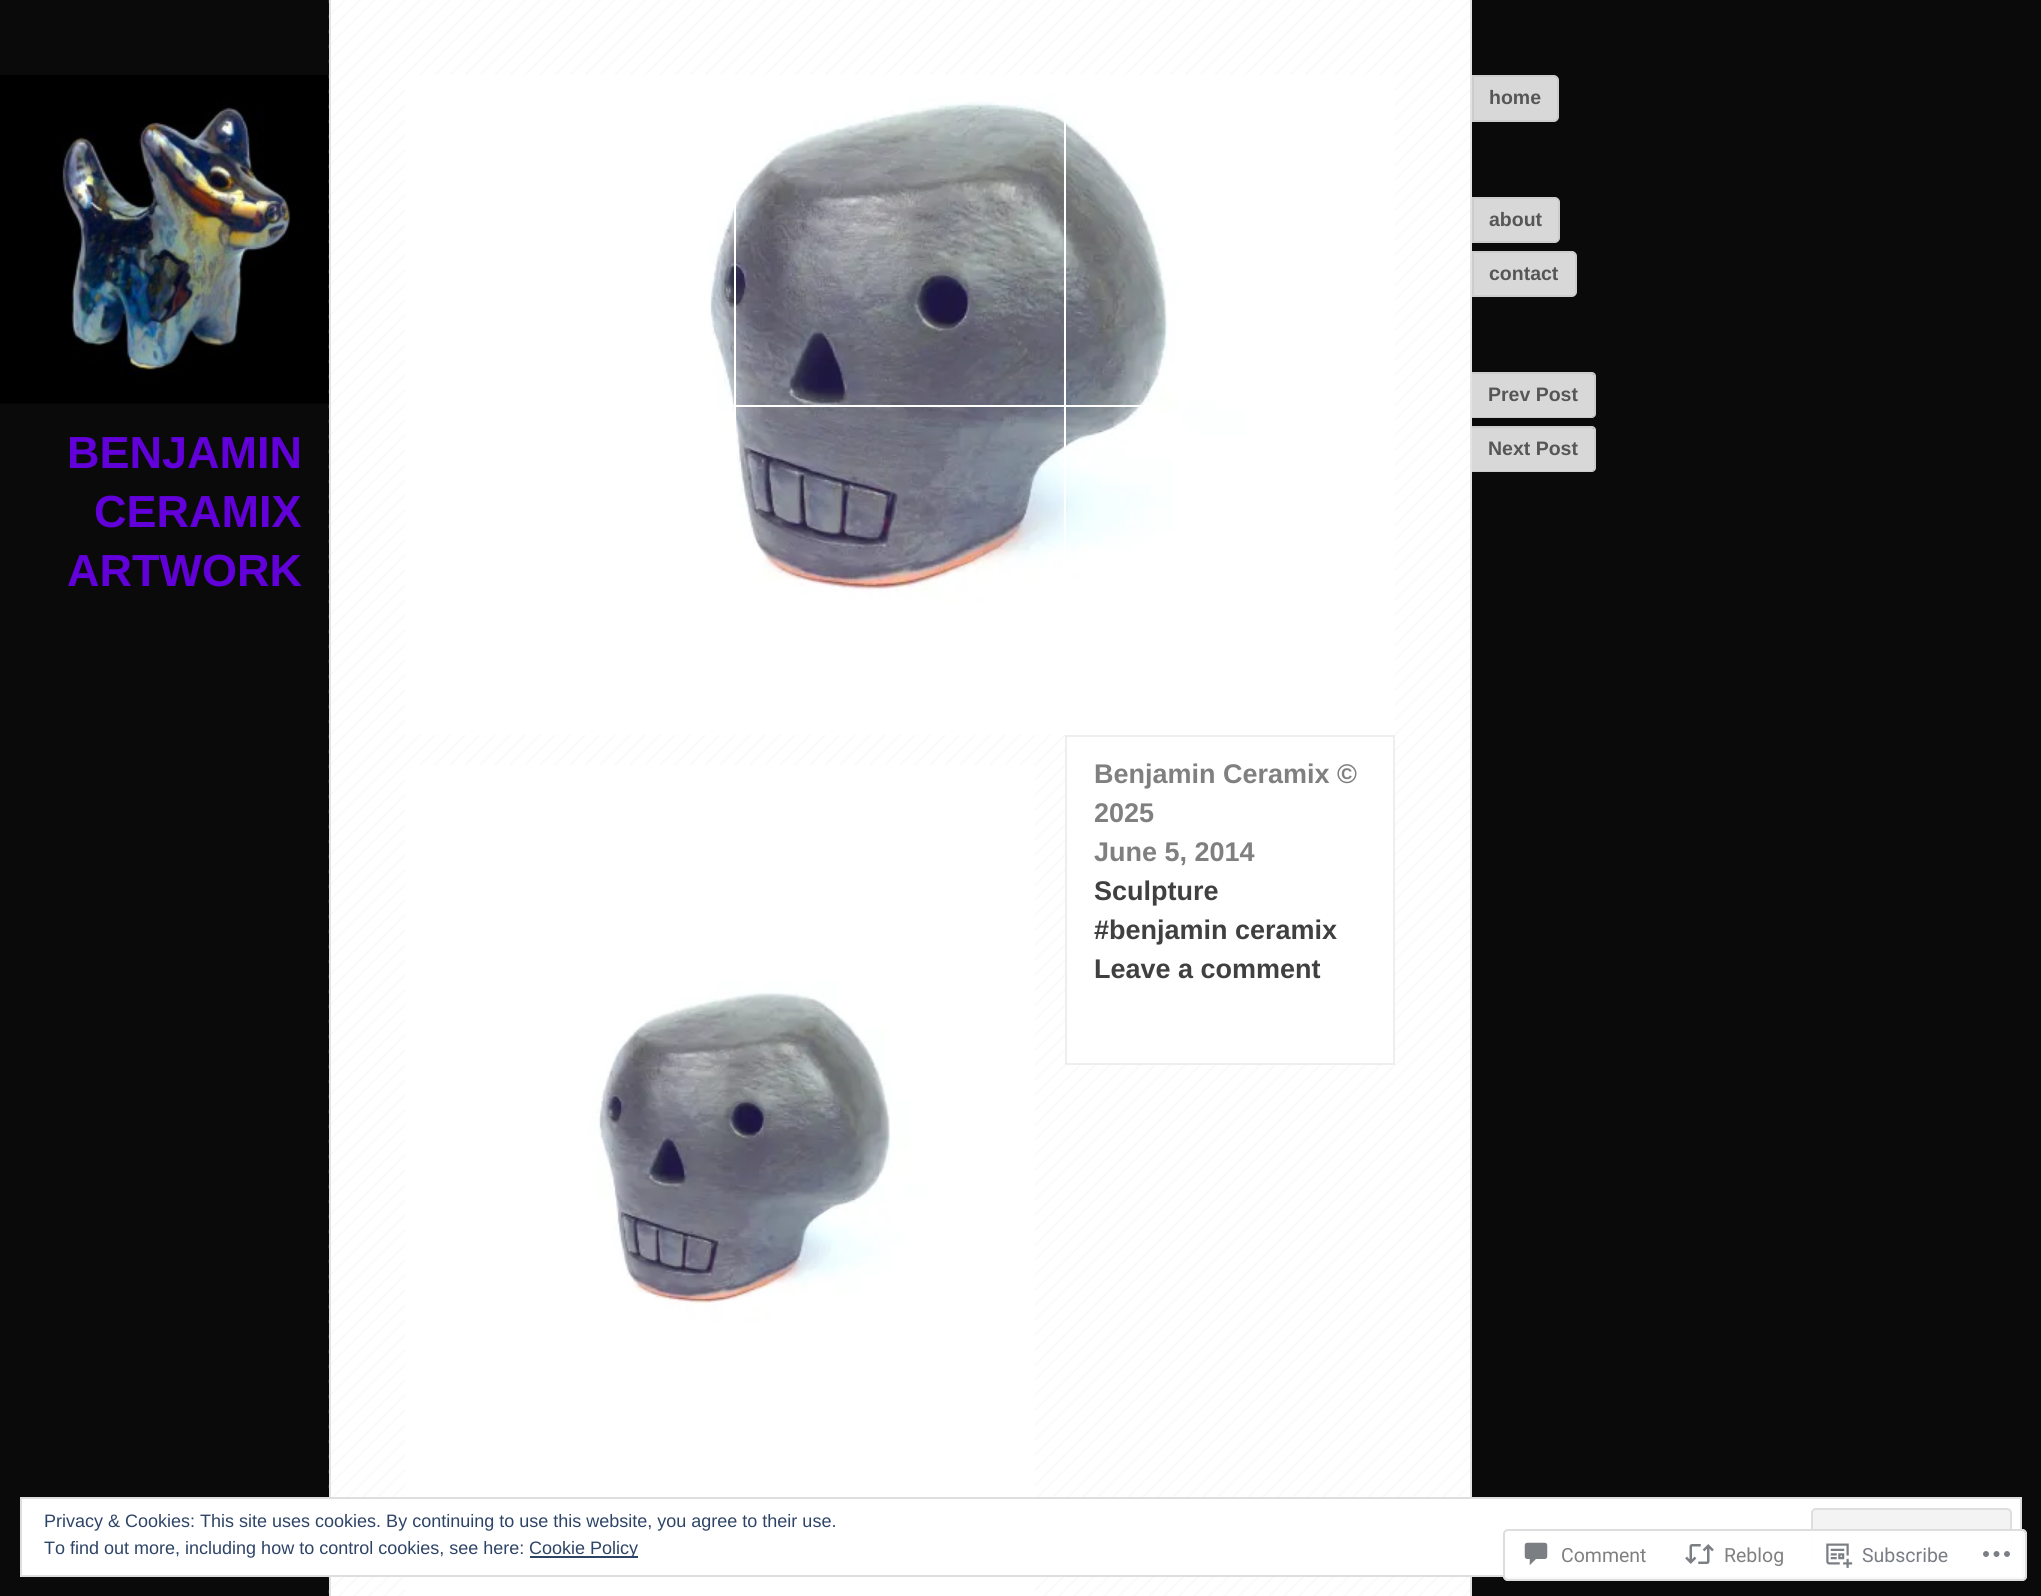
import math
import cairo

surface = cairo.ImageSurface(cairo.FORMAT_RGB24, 2041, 1596)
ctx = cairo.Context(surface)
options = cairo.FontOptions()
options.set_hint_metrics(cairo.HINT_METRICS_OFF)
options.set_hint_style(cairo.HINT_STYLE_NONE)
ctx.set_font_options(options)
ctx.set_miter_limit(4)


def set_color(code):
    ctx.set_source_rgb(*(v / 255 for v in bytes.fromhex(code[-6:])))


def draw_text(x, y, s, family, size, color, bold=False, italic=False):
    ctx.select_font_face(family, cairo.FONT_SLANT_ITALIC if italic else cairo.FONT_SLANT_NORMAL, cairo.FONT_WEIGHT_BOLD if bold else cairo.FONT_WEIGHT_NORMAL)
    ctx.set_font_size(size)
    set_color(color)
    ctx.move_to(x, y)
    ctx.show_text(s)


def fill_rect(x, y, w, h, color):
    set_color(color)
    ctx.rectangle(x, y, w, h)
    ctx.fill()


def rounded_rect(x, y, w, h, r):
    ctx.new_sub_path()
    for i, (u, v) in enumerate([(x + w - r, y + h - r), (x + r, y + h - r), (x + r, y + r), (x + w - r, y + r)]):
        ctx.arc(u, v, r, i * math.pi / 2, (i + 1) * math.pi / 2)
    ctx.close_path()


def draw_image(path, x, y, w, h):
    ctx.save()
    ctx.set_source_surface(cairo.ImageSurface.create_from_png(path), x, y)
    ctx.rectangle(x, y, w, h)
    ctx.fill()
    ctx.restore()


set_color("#0a0a0a")
ctx.paint()
draw_image("assets/img1.png", 0, 75, 329, 329)
draw_text(67, 468, "BENJAMIN", "Liberation Sans", 45, "#6100d8", bold=True)
draw_text(94, 527, "CERAMIX", "Liberation Sans", 45, "#6100d8", bold=True)
draw_text(67, 586, "ARTWORK", "Liberation Sans", 45, "#6100d8", bold=True)
fill_rect(331, 0, 1139, 1596, "#ffffff")
draw_image("assets/img2.png", 328, 0, 1142, 1596)
fill_rect(1470, 0, 2, 1596, "#e3e3e3")
fill_rect(329, 0, 2, 1596, "#e3e3e3")
set_color("#d8d8d8")
ctx.new_path()
ctx.move_to(1473, 76)
ctx.line_to(1554, 76)
ctx.curve_to(1556, 76, 1558, 78, 1558, 80)
ctx.line_to(1558, 117)
ctx.curve_to(1558, 119, 1556, 121, 1554, 121)
ctx.line_to(1473, 121)
ctx.close_path()
ctx.fill_preserve()
set_color("#cccccc")
ctx.stroke()
draw_text(1489, 104, "home", "Liberation Sans", 19.5, "#565656", bold=True)
set_color("#d8d8d8")
ctx.new_path()
ctx.move_to(1473, 198)
ctx.line_to(1555, 198)
ctx.curve_to(1557, 198, 1559, 200, 1559, 202)
ctx.line_to(1559, 238)
ctx.curve_to(1559, 240, 1557, 242, 1555, 242)
ctx.line_to(1473, 242)
ctx.close_path()
ctx.fill_preserve()
set_color("#cccccc")
ctx.stroke()
draw_text(1489, 226, "about", "Liberation Sans", 19.5, "#565656", bold=True)
set_color("#d8d8d8")
ctx.new_path()
ctx.move_to(1473, 252)
ctx.line_to(1572, 252)
ctx.curve_to(1574, 252, 1576, 254, 1576, 256)
ctx.line_to(1576, 292)
ctx.curve_to(1576, 294, 1574, 296, 1572, 296)
ctx.line_to(1473, 296)
ctx.close_path()
ctx.fill_preserve()
set_color("#cccccc")
ctx.stroke()
draw_text(1489, 280, "contact", "Liberation Sans", 19.5, "#565656", bold=True)
set_color("#d8d8d8")
ctx.new_path()
ctx.move_to(1472, 374)
ctx.line_to(1592, 374)
ctx.curve_to(1593.5, 374, 1595, 375.5, 1595, 377)
ctx.line_to(1595, 414)
ctx.curve_to(1595, 415.5, 1593.5, 417, 1592, 417)
ctx.line_to(1472, 417)
ctx.close_path()
ctx.fill()
set_color("#cccccc")
ctx.set_fill_rule(cairo.FILL_RULE_EVEN_ODD)
ctx.new_path()
ctx.move_to(1472, 372)
ctx.line_to(1592, 372)
ctx.curve_to(1594, 372, 1596, 374, 1596, 376)
ctx.line_to(1596, 414)
ctx.curve_to(1596, 416, 1594, 418, 1592, 418)
ctx.line_to(1472, 418)
ctx.close_path()
ctx.move_to(1472, 374)
ctx.line_to(1592, 374)
ctx.curve_to(1593, 374, 1594, 375, 1594, 376)
ctx.line_to(1594, 414)
ctx.curve_to(1594, 416, 1593, 417, 1592, 417)
ctx.line_to(1472, 417)
ctx.close_path()
ctx.fill()
draw_text(1488, 401, "Prev Post", "Liberation Sans", 19.5, "#565656", bold=True)
set_color("#d8d8d8")
ctx.new_path()
ctx.move_to(1472, 428)
ctx.line_to(1592, 428)
ctx.curve_to(1593.5, 428, 1595, 429.5, 1595, 431)
ctx.line_to(1595, 468)
ctx.curve_to(1595, 469.5, 1593.5, 471, 1592, 471)
ctx.line_to(1472, 471)
ctx.close_path()
ctx.fill()
set_color("#cccccc")
ctx.new_path()
ctx.move_to(1472, 426)
ctx.line_to(1592, 426)
ctx.curve_to(1594, 426, 1596, 428, 1596, 430)
ctx.line_to(1596, 468)
ctx.curve_to(1596, 470, 1594, 472, 1592, 472)
ctx.line_to(1472, 472)
ctx.close_path()
ctx.move_to(1472, 428)
ctx.line_to(1592, 428)
ctx.curve_to(1593, 428, 1594, 429, 1594, 430)
ctx.line_to(1594, 468)
ctx.curve_to(1594, 470, 1593, 471, 1592, 471)
ctx.line_to(1472, 471)
ctx.close_path()
ctx.fill()
draw_text(1488, 455, "Next Post", "Liberation Sans", 19.5, "#565656", bold=True)
draw_image("assets/img3.png", 405, 75, 990, 660)
fill_rect(733, 405, 435, 2, "#ffffff")
fill_rect(734, 200, 2, 267, "#ffffff")
fill_rect(1064, 116, 2, 440, "#ffffff")
draw_image("assets/img4.png", 405, 765, 630, 831)
ctx.rectangle(1066, 736, 328, 328)
ctx.fill_preserve()
set_color("#eeeeee")
ctx.stroke()
draw_text(1094, 783, "Benjamin Ceramix ©", "Liberation Sans", 27, "#808080", bold=True)
draw_text(1094, 822, "2025", "Liberation Sans", 27, "#808080", bold=True)
draw_text(1094, 861, "June 5, 2014", "Liberation Sans", 27, "#808080", bold=True)
draw_text(1094, 900, "Sculpture", "Liberation Sans", 27, "#404040", bold=True)
draw_text(1094, 939, "#benjamin ceramix", "Liberation Sans", 27, "#404040", bold=True)
draw_text(1094, 978, "Leave a comment", "Liberation Sans", 27, "#404040", bold=True)
set_color("#ffffff")
ctx.rectangle(21, 1498, 2000, 78)
ctx.fill_preserve()
set_color("#dedede")
ctx.stroke()
draw_text(44, 1527, "Privacy & Cookies: This site uses cookies. By continuing to use this website, you agree to their use.", "Liberation Sans", 18, "#2e4467")
set_color("#f3f3f3")
rounded_rect(1812, 1509, 199, 56, 4)
ctx.fill_preserve()
set_color("#dedede")
ctx.stroke()
draw_text(44, 1554, "To find out more, including how to control cookies, see here:", "Liberation Sans", 18, "#2e4467")
fill_rect(530, 1556, 108, 2, "#2e4467")
draw_text(529, 1554, "Cookie Policy", "Liberation Sans", 18, "#2e4467")
ctx.set_source_rgba(1, 1, 1, 0.98)
rounded_rect(1503, 1529, 524, 52, 5)
ctx.fill()
rounded_rect(1504, 1530, 522, 50, 4)
ctx.set_source_rgba(0.863, 0.863, 0.871, 0.98)
ctx.stroke()
draw_image("assets/img5.png", 1524, 1542, 24, 24)
draw_text(1561, 1562, "Comment", "Roboto", 19.5, "#808080")
draw_image("assets/img6.png", 1685, 1544, 29, 20)
draw_text(1724, 1562, "Reblog", "Roboto", 19.5, "#808080")
draw_image("assets/img7.png", 1826, 1543, 27, 25)
draw_text(1862, 1562, "Subscribe", "Roboto", 19.5, "#7a7e84")
draw_image("assets/img8.png", 1983, 1551, 27, 6)
surface.write_to_png("output.png")
